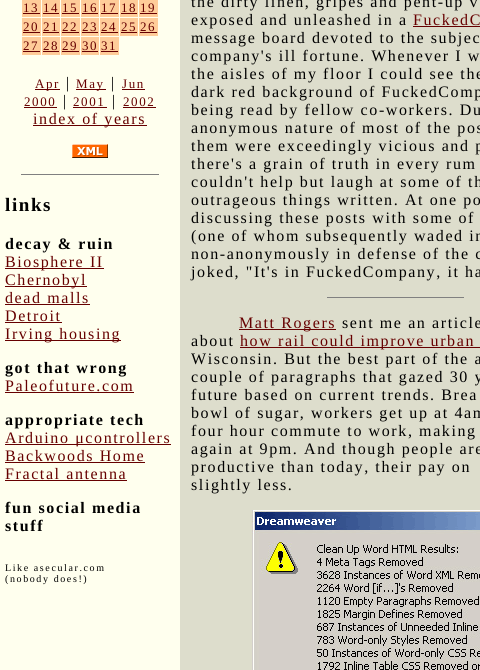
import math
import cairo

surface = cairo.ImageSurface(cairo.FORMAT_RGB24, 480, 670)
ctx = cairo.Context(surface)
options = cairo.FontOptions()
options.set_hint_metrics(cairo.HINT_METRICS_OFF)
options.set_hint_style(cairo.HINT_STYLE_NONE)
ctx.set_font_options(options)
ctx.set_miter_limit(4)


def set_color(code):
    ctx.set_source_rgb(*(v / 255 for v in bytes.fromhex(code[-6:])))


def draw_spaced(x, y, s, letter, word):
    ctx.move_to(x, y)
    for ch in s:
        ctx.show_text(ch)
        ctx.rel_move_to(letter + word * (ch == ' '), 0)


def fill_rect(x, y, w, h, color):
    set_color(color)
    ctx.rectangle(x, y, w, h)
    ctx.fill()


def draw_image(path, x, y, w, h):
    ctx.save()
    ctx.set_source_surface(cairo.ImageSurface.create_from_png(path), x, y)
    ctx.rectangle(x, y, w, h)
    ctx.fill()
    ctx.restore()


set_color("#ddddcc")
ctx.paint()
fill_rect(0, 0, 180, 670, "#ffffee")
fill_rect(22, 0, 19, 17, "#ffcc99")
ctx.select_font_face("Liberation Serif")
ctx.set_font_size(13)
set_color("#660000")
draw_spaced(23, 12, "13", 1.6, 0)
fill_rect(23, 13, 17, 1, "#660000")
fill_rect(42, 0, 18, 17, "#ffcc99")
set_color("#660000")
draw_spaced(43, 12, "14", 1.6, 0)
fill_rect(43, 13, 16, 1, "#660000")
fill_rect(61, 0, 19, 17, "#ffcc99")
set_color("#660000")
draw_spaced(62, 12, "15", 1.6, 0)
fill_rect(62, 13, 17, 1, "#660000")
fill_rect(81, 0, 18, 17, "#ffcc99")
set_color("#660000")
draw_spaced(82, 12, "16", 1.6, 0)
fill_rect(82, 13, 16, 1, "#660000")
fill_rect(100, 0, 19, 17, "#ffcc99")
set_color("#660000")
draw_spaced(101, 12, "17", 1.6, 0)
fill_rect(101, 13, 17, 1, "#660000")
fill_rect(120, 0, 18, 17, "#ffcc99")
set_color("#660000")
draw_spaced(121, 12, "18", 1.6, 0)
fill_rect(121, 13, 16, 1, "#660000")
fill_rect(139, 0, 19, 17, "#ffcc99")
set_color("#660000")
draw_spaced(140, 12, "19", 1.6, 0)
fill_rect(140, 13, 17, 1, "#660000")
fill_rect(22, 18, 19, 18, "#ffcc99")
set_color("#660000")
draw_spaced(23, 31, "20", 1.6, 0)
fill_rect(23, 32, 17, 1, "#660000")
fill_rect(42, 18, 18, 18, "#ffcc99")
set_color("#660000")
draw_spaced(43, 31, "21", 1.6, 0)
fill_rect(43, 32, 16, 1, "#660000")
fill_rect(61, 18, 19, 18, "#ffcc99")
set_color("#660000")
draw_spaced(62, 31, "22", 1.6, 0)
fill_rect(62, 32, 17, 1, "#660000")
fill_rect(81, 18, 18, 18, "#ffcc99")
set_color("#660000")
draw_spaced(82, 31, "23", 1.6, 0)
fill_rect(82, 32, 16, 1, "#660000")
fill_rect(100, 18, 19, 18, "#ffcc99")
set_color("#660000")
draw_spaced(101, 31, "24", 1.6, 0)
fill_rect(101, 32, 17, 1, "#660000")
fill_rect(120, 18, 18, 18, "#ffcc99")
set_color("#660000")
draw_spaced(121, 31, "25", 1.6, 0)
fill_rect(121, 32, 16, 1, "#660000")
fill_rect(139, 18, 19, 18, "#ffcc99")
set_color("#660000")
draw_spaced(140, 31, "26", 1.6, 0)
fill_rect(140, 32, 17, 1, "#660000")
fill_rect(22, 37, 19, 18, "#ffcc99")
set_color("#660000")
draw_spaced(23, 50, "27", 1.6, 0)
fill_rect(23, 51, 17, 1, "#660000")
fill_rect(42, 37, 18, 18, "#ffcc99")
set_color("#660000")
draw_spaced(43, 50, "28", 1.6, 0)
fill_rect(43, 51, 16, 1, "#660000")
fill_rect(61, 37, 19, 18, "#ffcc99")
set_color("#660000")
draw_spaced(62, 50, "29", 1.6, 0)
fill_rect(62, 51, 17, 1, "#660000")
fill_rect(81, 37, 18, 18, "#ffcc99")
set_color("#660000")
draw_spaced(82, 50, "30", 1.6, 0)
fill_rect(82, 51, 16, 1, "#660000")
fill_rect(100, 37, 19, 18, "#ffcc99")
set_color("#660000")
draw_spaced(101, 50, "31", 1.6, 0)
fill_rect(101, 51, 17, 1, "#660000")
fill_rect(35, 89, 25, 1, "#660000")
draw_spaced(35, 88, "Apr", 1.6, 0)
ctx.set_font_size(16)
set_color("#000000")
draw_spaced(66, 88, "|", 1.6, 0)
fill_rect(76, 89, 30, 1, "#660000")
ctx.set_font_size(13)
draw_spaced(76, 88, "May", 1.6, 0)
ctx.set_font_size(16)
set_color("#000000")
draw_spaced(111, 88, "|", 1.6, 0)
ctx.set_font_size(13)
set_color("#660000")
draw_spaced(122, 88, "Jun", 1.6, 0)
fill_rect(122, 89, 23, 1, "#660000")
draw_spaced(24, 106, "2000", 1.6, 0)
fill_rect(24, 107, 33, 1, "#660000")
ctx.set_font_size(16)
set_color("#000000")
draw_spaced(63, 106, "|", 1.6, 0)
ctx.set_font_size(13)
set_color("#660000")
draw_spaced(73, 106, "2001", 1.6, 0)
fill_rect(73, 107, 34, 1, "#660000")
ctx.set_font_size(16)
set_color("#000000")
draw_spaced(112, 106, "|", 1.6, 0)
ctx.set_font_size(13)
set_color("#660000")
draw_spaced(123, 106, "2002", 1.6, 0)
fill_rect(123, 107, 33, 1, "#660000")
fill_rect(33, 125, 114, 1, "#660000")
ctx.set_font_size(16)
draw_spaced(33, 124, "index of years", 1.6, 0)
draw_image("assets/img1.png", 72, 144, 36, 14)
fill_rect(21, 174, 138, 1, "#808080")
ctx.select_font_face("Liberation Serif", cairo.FONT_SLANT_NORMAL, cairo.FONT_WEIGHT_BOLD)
ctx.set_font_size(19)
set_color("#000000")
draw_spaced(5, 211, "links", 1.6, 0)
ctx.set_font_size(16)
draw_spaced(5, 249, "decay & ruin", 1.6, 0)
fill_rect(5, 268, 99, 1, "#660000")
ctx.select_font_face("Liberation Serif")
draw_spaced(5, 267, "Biosphere II", 1.6, 0)
fill_rect(5, 286, 82, 1, "#660000")
draw_spaced(5, 285, "Chernobyl", 1.6, 0)
draw_spaced(5, 303, "dead malls", 1.6, 0)
fill_rect(5, 304, 85, 1, "#660000")
draw_spaced(5, 321, "Detroit", 1.6, 0)
fill_rect(5, 322, 57, 1, "#660000")
fill_rect(5, 340, 116, 1, "#660000")
draw_spaced(5, 339, "Irving housing", 1.6, 0)
ctx.select_font_face("Liberation Serif", cairo.FONT_SLANT_NORMAL, cairo.FONT_WEIGHT_BOLD)
set_color("#000000")
draw_spaced(5, 373, "got that wrong", 1.6, 0)
ctx.select_font_face("Liberation Serif")
set_color("#660000")
draw_spaced(5, 391, "Paleofuture.com", 1.6, 0)
fill_rect(5, 392, 129, 1, "#660000")
ctx.select_font_face("Liberation Serif", cairo.FONT_SLANT_NORMAL, cairo.FONT_WEIGHT_BOLD)
set_color("#000000")
draw_spaced(5, 425, "appropriate tech", 1.6, 0)
fill_rect(5, 444, 166, 1, "#660000")
ctx.select_font_face("Liberation Serif")
draw_spaced(5, 443, "Arduino μcontrollers", 1.6, 0)
draw_spaced(5, 461, "Backwoods Home", 1.6, 0)
fill_rect(5, 462, 140, 1, "#660000")
draw_spaced(5, 479, "Fractal antenna", 1.6, 0)
fill_rect(5, 480, 122, 1, "#660000")
ctx.select_font_face("Liberation Serif", cairo.FONT_SLANT_NORMAL, cairo.FONT_WEIGHT_BOLD)
set_color("#000000")
draw_spaced(5, 513, "fun social media", 1.6, 0)
draw_spaced(5, 531, "stuff", 1.6, 0)
ctx.select_font_face("Liberation Serif")
ctx.set_font_size(10)
draw_spaced(5, 571, "Like asecular.com", 1.6, 0)
draw_spaced(5, 582, "(nobody does!)", 1.6, 0)
ctx.set_font_size(16)
draw_spaced(191, 7, "the dirty linen, gripes and pent-up v", 1.6, 0)
draw_spaced(191, 25, "exposed and unleashed in a", 1.6, 0)
set_color("#660000")
draw_spaced(413, 25, "FuckedC", 1.6, 0)
fill_rect(413, 26, 67, 1, "#660000")
set_color("#000000")
draw_spaced(191, 43, "message board devoted to the subjec", 1.6, 0)
draw_spaced(191, 61, "company's ill fortune. Whenever I w", 1.6, 0)
draw_spaced(191, 79, "the aisles of my floor I could see the", 1.6, 0)
draw_spaced(191, 97, "dark red background of FuckedComp", 1.6, 0)
draw_spaced(191, 115, "being read by fellow co-workers. Du", 1.6, 0)
draw_spaced(191, 133, "anonymous nature of most of the pos", 1.6, 0)
draw_spaced(191, 151, "them were exceedingly vicious and p", 1.6, 0)
draw_spaced(191, 169, "there's a grain of truth in every rum", 1.6, 0)
draw_spaced(191, 187, "couldn't help but laugh at some of th", 1.6, 0)
draw_spaced(191, 205, "outrageous things written. At one po", 1.6, 0)
draw_spaced(191, 223, "discussing these posts with some of", 1.6, 0)
draw_spaced(191, 241, "(one of whom subsequently waded in", 1.6, 0)
draw_spaced(191, 259, "non-anonymously in defense of the c", 1.6, 0)
draw_spaced(191, 277, "joked, \"It's in FuckedCompany, it ha", 1.6, 0)
fill_rect(327, 297, 137, 1, "#808080")
fill_rect(239, 329, 97, 1, "#660000")
draw_spaced(239, 328, "Matt Rogers", 1.6, 0)
set_color("#000000")
draw_spaced(342, 328, "sent me an article", 1.6, 0)
draw_spaced(191, 346, "about", 1.6, 0)
fill_rect(240, 347, 240, 1, "#660000")
draw_spaced(240, 346, "how rail could improve urban", 1.6, 0)
set_color("#000000")
draw_spaced(191, 364, "Wisconsin. But the best part of the a", 1.6, 0)
draw_spaced(191, 382, "couple of paragraphs that gazed 30 y", 1.6, 0)
draw_spaced(191, 400, "future based on current trends. Brea", 1.6, 0)
draw_spaced(191, 418, "bowl of sugar, workers get up at 4am", 1.6, 0)
draw_spaced(191, 436, "four hour commute to work, making", 1.6, 0)
draw_spaced(191, 454, "again at 9pm. And though people are", 1.6, 0)
draw_spaced(191, 472, "productive than today, their pay on", 1.6, 0)
draw_spaced(191, 490, "slightly less.", 1.6, 0)
draw_image("assets/img2.png", 252, 510, 228, 160)
surface.write_to_png("output.png")
